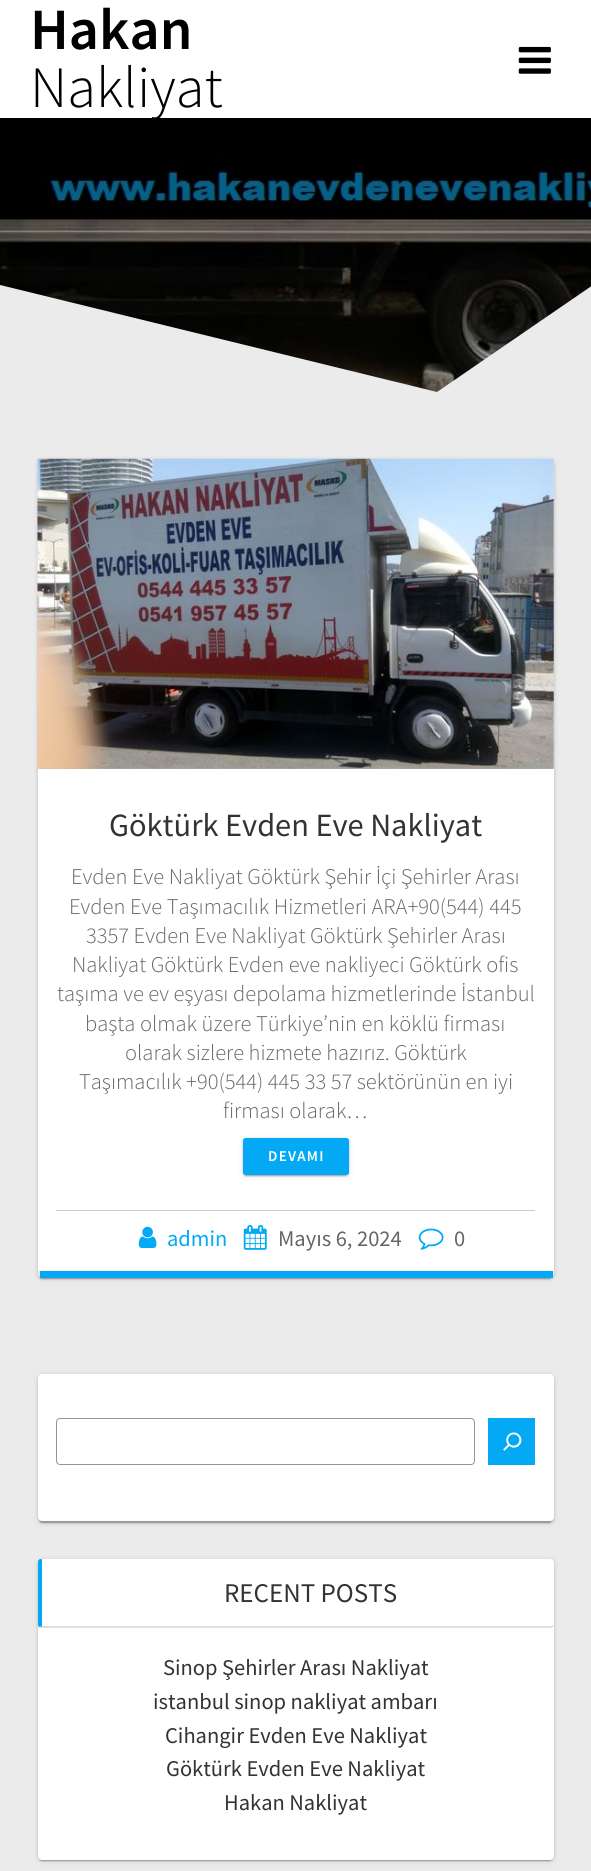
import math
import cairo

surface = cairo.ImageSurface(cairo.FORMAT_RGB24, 591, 1871)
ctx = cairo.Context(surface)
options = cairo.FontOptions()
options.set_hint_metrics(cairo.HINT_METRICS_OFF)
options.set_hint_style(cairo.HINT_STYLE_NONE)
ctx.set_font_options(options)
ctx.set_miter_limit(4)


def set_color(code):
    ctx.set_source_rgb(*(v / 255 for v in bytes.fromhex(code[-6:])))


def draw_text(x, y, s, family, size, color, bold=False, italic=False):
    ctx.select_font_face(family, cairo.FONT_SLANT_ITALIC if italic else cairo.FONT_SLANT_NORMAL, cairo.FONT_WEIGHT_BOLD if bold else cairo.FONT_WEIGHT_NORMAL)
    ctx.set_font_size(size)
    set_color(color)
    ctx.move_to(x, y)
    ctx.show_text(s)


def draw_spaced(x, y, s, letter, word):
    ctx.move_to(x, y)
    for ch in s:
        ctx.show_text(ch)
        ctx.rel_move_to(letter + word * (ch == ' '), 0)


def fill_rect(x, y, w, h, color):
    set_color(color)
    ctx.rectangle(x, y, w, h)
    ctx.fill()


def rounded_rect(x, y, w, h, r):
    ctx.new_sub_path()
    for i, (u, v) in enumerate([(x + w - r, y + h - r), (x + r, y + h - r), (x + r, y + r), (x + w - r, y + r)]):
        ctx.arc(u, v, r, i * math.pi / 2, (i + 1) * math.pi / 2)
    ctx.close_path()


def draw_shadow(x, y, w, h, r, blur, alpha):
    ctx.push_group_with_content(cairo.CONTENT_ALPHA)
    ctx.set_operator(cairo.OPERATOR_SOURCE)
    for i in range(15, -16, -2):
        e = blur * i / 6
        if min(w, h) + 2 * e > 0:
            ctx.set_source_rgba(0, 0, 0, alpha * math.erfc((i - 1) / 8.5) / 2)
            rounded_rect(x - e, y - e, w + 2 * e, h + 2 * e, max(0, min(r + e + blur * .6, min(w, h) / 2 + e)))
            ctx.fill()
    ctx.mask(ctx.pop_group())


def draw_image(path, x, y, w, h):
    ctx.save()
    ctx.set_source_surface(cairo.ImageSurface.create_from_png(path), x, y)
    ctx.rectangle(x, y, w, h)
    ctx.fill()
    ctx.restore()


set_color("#ebebeb")
ctx.paint()
draw_image("assets/img2.png", 0, 118, 591, 274)
set_color("#000000")
draw_shadow(-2, -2, 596, 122, 0, 3, 0.33)
fill_rect(0, 0, 591, 118, "#ffffff")
draw_text(30, 49, "Hakan", "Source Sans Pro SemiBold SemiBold", 58.5, "#000000")
draw_text(30, 107, "Nakliyat", "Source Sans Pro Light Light", 58.5, "#000000")
draw_image("assets/img1.png", 518, 46, 33, 28)
set_color("#ebebeb")
ctx.new_path()
ctx.move_to(437, 392)
ctx.line_to(0, 285)
ctx.line_to(0, 398)
ctx.line_to(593, 398)
ctx.line_to(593, 285)
ctx.close_path()
ctx.fill()
ctx.save()
ctx.set_fill_rule(cairo.FILL_RULE_EVEN_ODD)
ctx.new_path()
ctx.move_to(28, 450)
ctx.line_to(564, 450)
ctx.line_to(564, 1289)
ctx.line_to(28, 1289)
ctx.close_path()
ctx.move_to(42, 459)
ctx.line_to(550, 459)
ctx.curve_to(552, 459, 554, 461, 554, 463)
ctx.line_to(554, 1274)
ctx.curve_to(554, 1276, 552, 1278, 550, 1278)
ctx.line_to(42, 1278)
ctx.curve_to(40, 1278, 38, 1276, 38, 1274)
ctx.line_to(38, 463)
ctx.curve_to(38, 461, 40, 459, 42, 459)
ctx.close_path()
ctx.clip()
set_color("#000000")
draw_shadow(38, 460, 516, 819, 4, 3, 0.12)
ctx.restore()
set_color("#000000")
draw_shadow(40, 465, 511, 814, 1, 0.5, 0.2)
ctx.save()
ctx.set_fill_rule(cairo.FILL_RULE_EVEN_ODD)
ctx.new_path()
ctx.move_to(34, 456)
ctx.line_to(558, 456)
ctx.line_to(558, 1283)
ctx.line_to(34, 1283)
ctx.close_path()
ctx.move_to(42, 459)
ctx.line_to(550, 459)
ctx.curve_to(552, 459, 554, 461, 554, 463)
ctx.line_to(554, 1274)
ctx.curve_to(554, 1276, 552, 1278, 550, 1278)
ctx.line_to(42, 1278)
ctx.curve_to(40, 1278, 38, 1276, 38, 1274)
ctx.line_to(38, 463)
ctx.curve_to(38, 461, 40, 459, 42, 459)
ctx.close_path()
ctx.clip()
draw_shadow(38, 460, 516, 819, 4, 1, 0.14)
ctx.restore()
fill_rect(40, 1271, 513, 7, "#03a8f4")
draw_image("assets/img3.png", 37, 458, 517, 311)
fill_rect(38, 769, 516, 502, "#ffffff")
draw_text(109, 836, "Göktürk Evden Eve Nakliyat", "Source Sans Pro", 32.4, "#333333")
draw_text(71, 884, "Evden Eve Nakliyat Göktürk Şehir İçi Şehirler Arası", "Source Sans Pro Light Light", 22.5, "#666666")
draw_text(69, 914, "Evden Eve Taşımacılık Hizmetleri ARA+90(544) 445", "Source Sans Pro Light Light", 22.5, "#666666")
draw_text(86, 943, "3357 Evden Eve Nakliyat Göktürk Şehirler Arası", "Source Sans Pro Light Light", 22.5, "#666666")
draw_text(72, 972, "Nakliyat Göktürk Evden eve nakliyeci Göktürk ofis", "Source Sans Pro Light Light", 22.5, "#666666")
draw_text(57, 1001, "taşıma ve ev eşyası depolama hizmetlerinde İstanbul", "Source Sans Pro Light Light", 22.5, "#666666")
draw_text(85, 1031, "başta olmak üzere Türkiye’nin en köklü firması", "Source Sans Pro Light Light", 22.5, "#666666")
draw_text(125, 1060, "olarak sizlere hizmete hazırız. Göktürk", "Source Sans Pro Light Light", 22.5, "#666666")
draw_text(79, 1089, "Taşımacılık +90(544) 445 33 57 sektörünün en iyi", "Source Sans Pro Light Light", 22.5, "#666666")
draw_text(223, 1118, "firması olarak…", "Source Sans Pro Light Light", 22.5, "#666666")
set_color("#000000")
draw_shadow(243, 1139, 106, 37, 2.5, 3, 0.12)
draw_shadow(245, 1144, 101, 32, 0, 0.5, 0.2)
draw_shadow(243, 1139, 106, 37, 2.5, 1, 0.14)
set_color("#03a9f4")
rounded_rect(243, 1138, 106, 37, 2.5)
ctx.fill()
ctx.select_font_face("Source Sans Pro SemiBold SemiBold")
ctx.set_font_size(15)
set_color("#ffffff")
draw_spaced(268, 1161, "DEVAMI", 1.25, 0)
fill_rect(56, 1210, 479, 1, "#cccccc")
draw_image("assets/img4.png", 138, 1226, 19, 22)
draw_text(167, 1246, "admin", "Source Sans Pro", 22.5, "#03a9f4")
draw_image("assets/img5.png", 243, 1225, 24, 25)
draw_text(278, 1246, "Mayıs 6, 2024", "Source Sans Pro", 22.5, "#666666")
draw_image("assets/img6.png", 418, 1228, 26, 22)
draw_text(454, 1246, "0", "Source Sans Pro", 22.5, "#666666")
set_color("#000000")
draw_shadow(38, 1375, 516, 148, 4, 3, 0.12)
draw_shadow(40, 1380, 511, 143, 1, 0.5, 0.2)
draw_shadow(38, 1375, 516, 148, 4, 1, 0.14)
set_color("#ffffff")
rounded_rect(38, 1374, 516, 147, 4)
ctx.fill()
rounded_rect(56.5, 1418.5, 418, 46, 3.5)
set_color("#949494")
ctx.set_line_width(1)
ctx.stroke()
fill_rect(488, 1418, 47, 47, "#03a9f4")
draw_image("assets/img7.png", 503, 1432, 19, 19)
set_color("#000000")
draw_shadow(38, 1560, 516, 301, 4, 3, 0.12)
draw_shadow(40, 1565, 511, 296, 1, 0.5, 0.2)
draw_shadow(38, 1560, 516, 301, 4, 1, 0.14)
set_color("#ffffff")
rounded_rect(38, 1559, 516, 301, 4)
ctx.fill()
set_color("#e0e0e0")
ctx.new_path()
ctx.move_to(39, 1628)
ctx.line_to(39, 1627)
ctx.line_to(44, 1626)
ctx.line_to(550, 1626)
ctx.curve_to(552, 1626, 553, 1625, 554, 1625)
ctx.curve_to(554, 1626, 553, 1627, 552, 1628)
ctx.close_path()
ctx.fill()
set_color("#03a8f4")
ctx.new_path()
ctx.move_to(41, 1559)
ctx.line_to(42, 1559)
ctx.line_to(42, 1626)
ctx.line_to(44, 1626)
ctx.line_to(39, 1627)
ctx.curve_to(38, 1626, 38, 1625, 38, 1624)
ctx.line_to(38, 1562)
ctx.curve_to(38, 1560, 39, 1559, 41, 1559)
ctx.close_path()
ctx.fill()
draw_text(224, 1602, "RECENT POSTS", "Source Sans Pro", 27, "#333333")
draw_text(163, 1675, "Sinop Şehirler Arası Nakliyat", "Source Sans Pro", 22.5, "#333333")
draw_text(153, 1709, "istanbul sinop nakliyat ambarı", "Source Sans Pro", 22.5, "#333333")
draw_text(165, 1743, "Cihangir Evden Eve Nakliyat", "Source Sans Pro", 22.5, "#333333")
draw_text(166, 1776, "Göktürk Evden Eve Nakliyat", "Source Sans Pro", 22.5, "#333333")
draw_text(224, 1810, "Hakan Nakliyat", "Source Sans Pro", 22.5, "#333333")
surface.write_to_png("output.png")
